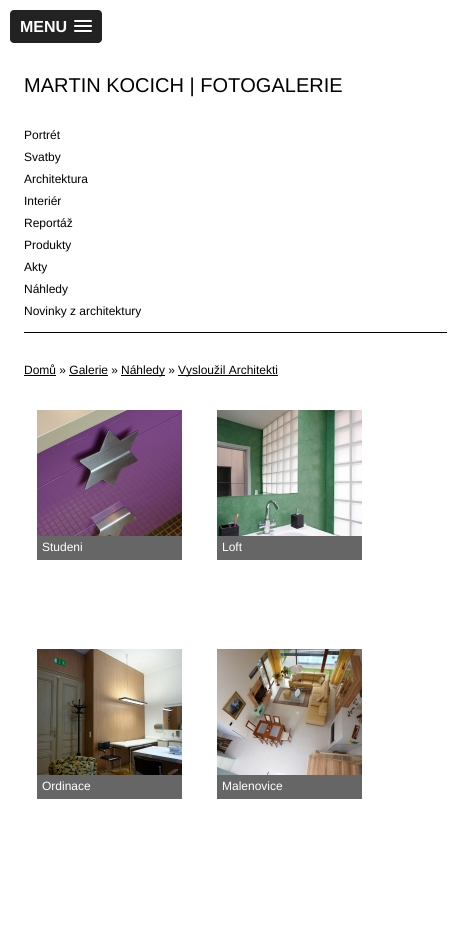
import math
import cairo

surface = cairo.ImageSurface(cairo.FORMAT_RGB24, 471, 951)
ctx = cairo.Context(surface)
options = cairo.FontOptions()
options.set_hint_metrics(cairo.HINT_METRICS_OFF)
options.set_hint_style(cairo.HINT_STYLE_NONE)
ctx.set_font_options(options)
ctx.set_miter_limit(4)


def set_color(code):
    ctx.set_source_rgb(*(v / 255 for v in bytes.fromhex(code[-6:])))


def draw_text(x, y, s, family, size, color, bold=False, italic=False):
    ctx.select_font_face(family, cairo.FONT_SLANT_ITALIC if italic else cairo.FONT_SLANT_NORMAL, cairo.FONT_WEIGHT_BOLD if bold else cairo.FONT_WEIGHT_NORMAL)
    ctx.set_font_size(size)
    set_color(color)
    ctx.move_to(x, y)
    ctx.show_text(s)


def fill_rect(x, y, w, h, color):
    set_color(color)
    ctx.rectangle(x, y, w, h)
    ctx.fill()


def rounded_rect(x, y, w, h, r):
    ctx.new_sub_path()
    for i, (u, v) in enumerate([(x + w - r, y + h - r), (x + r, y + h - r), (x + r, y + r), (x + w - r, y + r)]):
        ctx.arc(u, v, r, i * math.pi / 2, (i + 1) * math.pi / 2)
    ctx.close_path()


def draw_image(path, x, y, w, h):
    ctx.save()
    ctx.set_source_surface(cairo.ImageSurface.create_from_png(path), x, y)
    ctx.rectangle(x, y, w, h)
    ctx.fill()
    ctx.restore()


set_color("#ffffff")
ctx.paint()
set_color("#222222")
rounded_rect(10, 10, 92, 33, 4)
ctx.fill()
draw_text(20, 32, "MENU", "Liberation Sans", 16, "#ffffff", bold=True)
set_color("#1a1a1a")
ctx.new_path()
ctx.move_to(74, 21.5)
ctx.curve_to(73, 23.5, 77.5, 23, 77.5, 23)
ctx.line_to(88.5, 23)
ctx.curve_to(88.5, 23, 93, 23.5, 92, 21.5)
ctx.curve_to(91, 22.5, 84.5, 22, 83, 22)
ctx.curve_to(81.5, 22, 75, 22.5, 74, 21.5)
ctx.close_path()
ctx.fill()
set_color("#ffffff")
rounded_rect(74, 20, 18, 2, 1)
ctx.fill()
set_color("#1a1a1a")
ctx.new_path()
ctx.move_to(74, 26.5)
ctx.curve_to(73, 28.5, 77.5, 28, 77.5, 28)
ctx.line_to(88.5, 28)
ctx.curve_to(88.5, 28, 93, 28.5, 92, 26.5)
ctx.curve_to(91, 27.5, 84.5, 27, 83, 27)
ctx.curve_to(81.5, 27, 75, 27.5, 74, 26.5)
ctx.close_path()
ctx.fill()
set_color("#ffffff")
rounded_rect(74, 25, 18, 2, 1)
ctx.fill()
set_color("#1a1a1a")
ctx.new_path()
ctx.move_to(74, 31.5)
ctx.curve_to(73, 33.5, 77.5, 33, 77.5, 33)
ctx.line_to(88.5, 33)
ctx.curve_to(88.5, 33, 93, 33.5, 92, 31.5)
ctx.curve_to(91, 32.5, 84.5, 32, 83, 32)
ctx.curve_to(81.5, 32, 75, 32.5, 74, 31.5)
ctx.close_path()
ctx.fill()
set_color("#ffffff")
rounded_rect(74, 30, 18, 2, 1)
ctx.fill()
draw_text(24, 92, "MARTIN KOCICH | FOTOGALERIE", "Liberation Sans", 20, "#000000")
fill_rect(24, 332, 423, 1, "#000000")
draw_text(24, 139, "Portrét", "Liberation Sans", 12, "#000000")
draw_text(24, 161, "Svatby", "Liberation Sans", 12, "#000000")
draw_text(24, 183, "Architektura", "Liberation Sans", 12, "#000000")
draw_text(24, 205, "Interiér", "Liberation Sans", 12, "#000000")
draw_text(24, 227, "Reportáž", "Liberation Sans", 12, "#000000")
draw_text(24, 249, "Produkty", "Liberation Sans", 12, "#000000")
draw_text(24, 271, "Akty", "Liberation Sans", 12, "#000000")
draw_text(24, 293, "Náhledy", "Liberation Sans", 12, "#000000")
draw_text(24, 315, "Novinky z architektury", "Liberation Sans", 12, "#000000")
draw_text(24, 374, "Domů » Galerie »", "Liberation Sans", 12, "#000000")
fill_rect(24, 375, 32, 1, "#000000")
fill_rect(121, 375, 44, 1, "#000000")
draw_text(121, 374, "Náhledy »", "Liberation Sans", 12, "#000000")
fill_rect(178, 375, 100, 1, "#000000")
draw_text(178, 374, "Vysloužil Architekti", "Liberation Sans", 12, "#000000")
fill_rect(69, 375, 39, 1, "#000000")
draw_image("assets/img1.png", 37, 410, 145, 126)
fill_rect(37, 536, 145, 24, "#666666")
draw_text(42, 551, "Studeni", "Liberation Sans", 12, "#ffffff")
draw_image("assets/img2.png", 217, 410, 145, 126)
fill_rect(217, 536, 145, 24, "#666666")
draw_text(222, 551, "Loft", "Liberation Sans", 12, "#ffffff")
draw_image("assets/img3.png", 37, 649, 145, 126)
fill_rect(37, 775, 145, 24, "#666666")
draw_text(42, 790, "Ordinace", "Liberation Sans", 12, "#ffffff")
draw_image("assets/img4.png", 217, 649, 145, 126)
fill_rect(217, 775, 145, 24, "#666666")
draw_text(222, 790, "Malenovice", "Liberation Sans", 12, "#ffffff")
surface.write_to_png("output.png")
